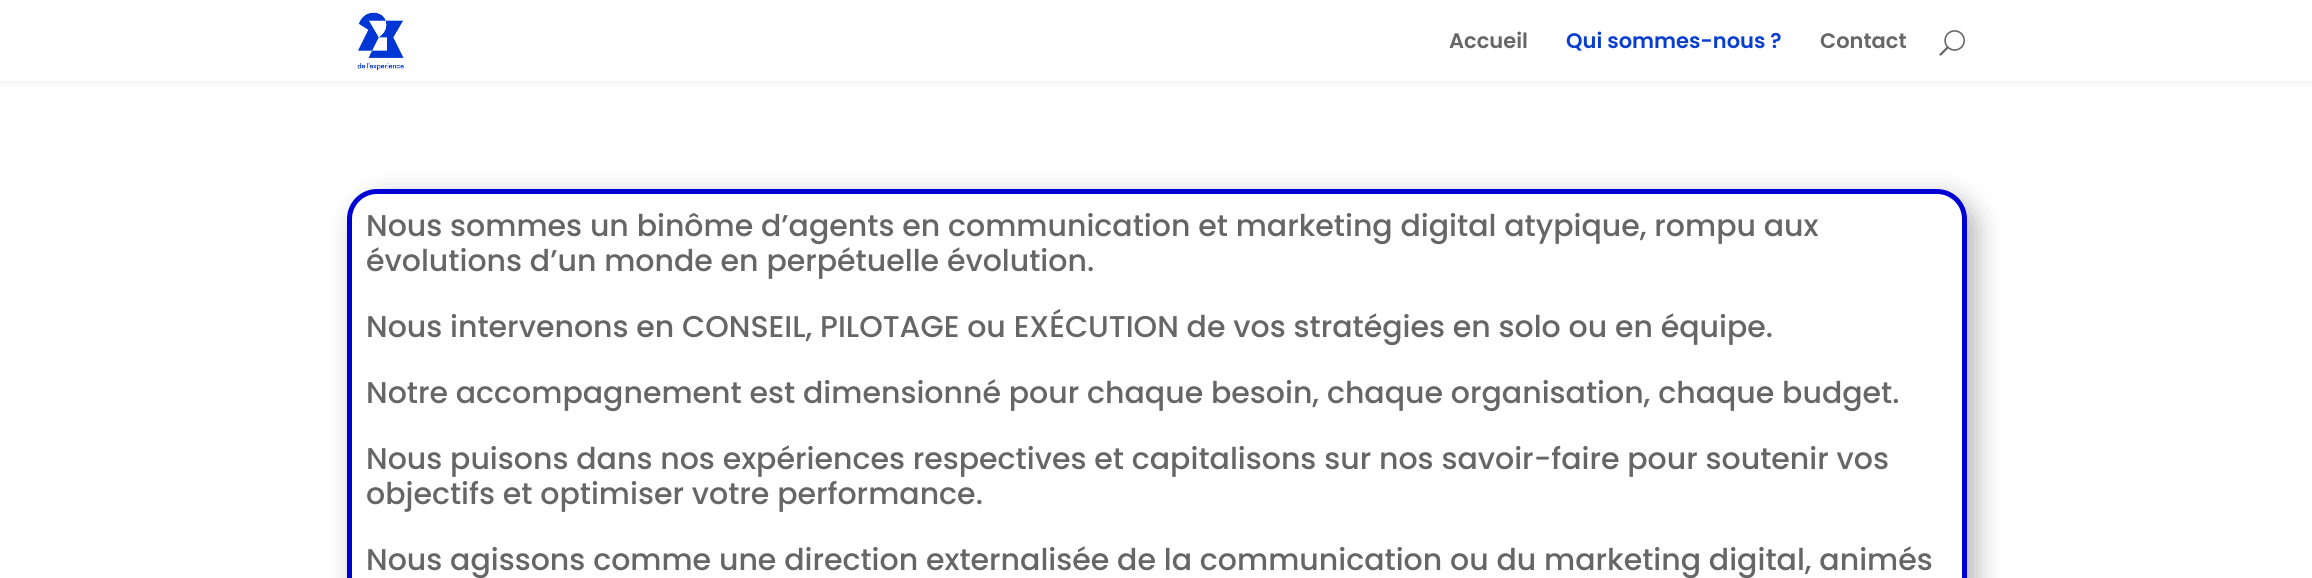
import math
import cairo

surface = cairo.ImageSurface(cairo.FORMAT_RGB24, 2312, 578)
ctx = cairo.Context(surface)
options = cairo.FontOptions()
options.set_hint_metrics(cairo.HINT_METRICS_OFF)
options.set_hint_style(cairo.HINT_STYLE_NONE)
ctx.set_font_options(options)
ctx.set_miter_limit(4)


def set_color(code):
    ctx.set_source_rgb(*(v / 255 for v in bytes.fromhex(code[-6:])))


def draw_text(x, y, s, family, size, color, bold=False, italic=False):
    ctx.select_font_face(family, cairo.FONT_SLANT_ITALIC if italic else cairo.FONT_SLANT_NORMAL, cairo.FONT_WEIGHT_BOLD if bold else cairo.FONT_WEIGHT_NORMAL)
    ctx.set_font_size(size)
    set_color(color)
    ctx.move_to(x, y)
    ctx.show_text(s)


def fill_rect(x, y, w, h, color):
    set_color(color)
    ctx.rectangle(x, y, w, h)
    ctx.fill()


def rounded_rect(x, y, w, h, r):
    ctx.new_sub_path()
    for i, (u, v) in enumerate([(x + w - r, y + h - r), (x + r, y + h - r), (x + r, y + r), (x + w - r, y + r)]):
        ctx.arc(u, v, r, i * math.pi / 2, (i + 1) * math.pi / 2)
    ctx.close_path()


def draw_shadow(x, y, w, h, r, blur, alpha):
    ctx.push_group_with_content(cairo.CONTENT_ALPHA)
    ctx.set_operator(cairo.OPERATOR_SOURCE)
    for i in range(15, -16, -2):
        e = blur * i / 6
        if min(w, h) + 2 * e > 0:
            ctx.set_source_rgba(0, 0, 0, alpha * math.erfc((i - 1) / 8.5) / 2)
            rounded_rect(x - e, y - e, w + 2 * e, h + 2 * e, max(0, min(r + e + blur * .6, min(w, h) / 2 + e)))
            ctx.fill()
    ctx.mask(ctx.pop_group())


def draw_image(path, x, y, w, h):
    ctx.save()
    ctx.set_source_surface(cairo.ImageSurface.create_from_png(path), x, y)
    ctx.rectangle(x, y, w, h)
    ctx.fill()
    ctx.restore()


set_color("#ffffff")
ctx.paint()
set_color("#000000")
draw_shadow(0, 0, 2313, 81, 0, 5, 0.1)
fill_rect(0, 0, 2312, 81, "#ffffff")
draw_image("assets/img1.png", 357, 12, 47, 59)
draw_text(1449, 48, "Accueil", "Poppins SemiBold", 21, "#666666")
draw_text(1566, 48, "Qui sommes-nous ?", "Poppins SemiBold", 21, "#0a3ed0")
draw_text(1820, 48, "Contact", "Poppins SemiBold", 21, "#666666")
draw_image("assets/img2.png", 1939, 30, 26, 26)
ctx.save()
ctx.set_fill_rule(cairo.FILL_RULE_EVEN_ODD)
ctx.new_path()
ctx.move_to(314, 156)
ctx.line_to(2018, 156)
ctx.line_to(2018, 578)
ctx.line_to(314, 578)
ctx.close_path()
ctx.move_to(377, 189)
ctx.line_to(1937, 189)
ctx.curve_to(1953.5, 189, 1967, 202.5, 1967, 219)
ctx.line_to(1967, 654)
ctx.curve_to(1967, 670.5, 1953.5, 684, 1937, 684)
ctx.line_to(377, 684)
ctx.curve_to(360.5, 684, 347, 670.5, 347, 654)
ctx.line_to(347, 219)
ctx.curve_to(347, 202.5, 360.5, 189, 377, 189)
ctx.close_path()
ctx.clip()
set_color("#000000")
draw_shadow(356, 198, 1620, 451, 30, 13.5, 0.3)
ctx.restore()
rounded_rect(349.5, 191.5, 1615, 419, 27.5)
set_color("#0000d4")
ctx.set_line_width(5)
ctx.stroke()
draw_text(366, 236, "Nous sommes un binôme d’agents en communication et marketing digital atypique, rompu aux", "Poppins Medium", 30, "#666666")
draw_text(366, 271, "évolutions d’un monde en perpétuelle évolution.", "Poppins Medium", 30, "#666666")
draw_text(366, 337, "Nous intervenons en CONSEIL, PILOTAGE ou EXÉCUTION de vos stratégies en solo ou en équipe.", "Poppins Medium", 30, "#666666")
draw_text(366, 403, "Notre accompagnement est dimensionné pour chaque besoin, chaque organisation, chaque budget.", "Poppins Medium", 30, "#666666")
draw_text(366, 469, "Nous puisons dans nos expériences respectives et capitalisons sur nos savoir-faire pour soutenir vos", "Poppins Medium", 30, "#666666")
draw_text(366, 504, "objectifs et optimiser votre performance.", "Poppins Medium", 30, "#666666")
draw_text(366, 570, "Nous agissons comme une direction externalisée de la communication ou du marketing digital, animés", "Poppins Medium", 30, "#666666")
surface.write_to_png("output.png")
